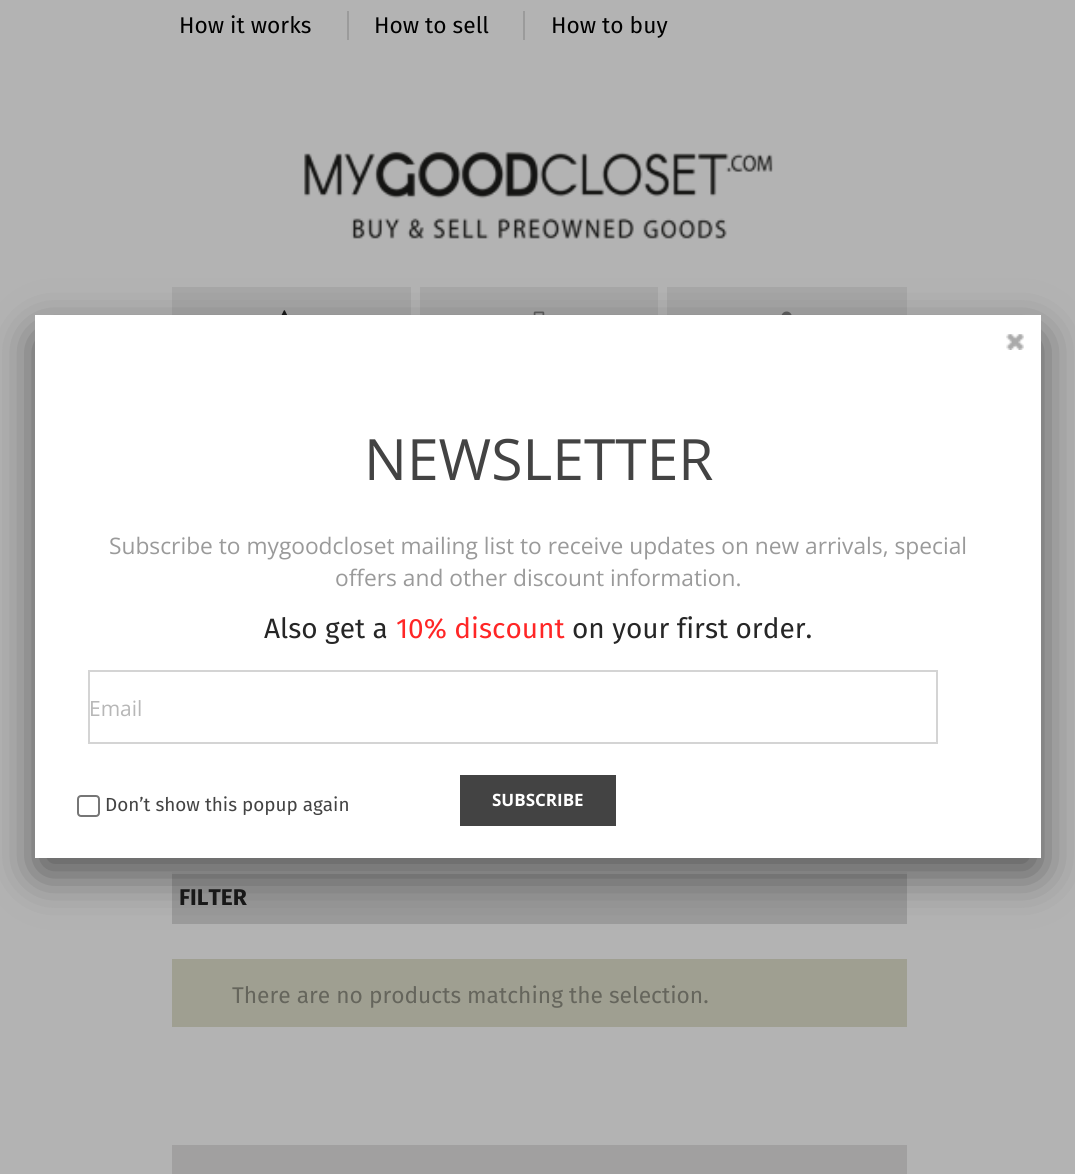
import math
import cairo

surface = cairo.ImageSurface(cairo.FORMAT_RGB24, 1075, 1174)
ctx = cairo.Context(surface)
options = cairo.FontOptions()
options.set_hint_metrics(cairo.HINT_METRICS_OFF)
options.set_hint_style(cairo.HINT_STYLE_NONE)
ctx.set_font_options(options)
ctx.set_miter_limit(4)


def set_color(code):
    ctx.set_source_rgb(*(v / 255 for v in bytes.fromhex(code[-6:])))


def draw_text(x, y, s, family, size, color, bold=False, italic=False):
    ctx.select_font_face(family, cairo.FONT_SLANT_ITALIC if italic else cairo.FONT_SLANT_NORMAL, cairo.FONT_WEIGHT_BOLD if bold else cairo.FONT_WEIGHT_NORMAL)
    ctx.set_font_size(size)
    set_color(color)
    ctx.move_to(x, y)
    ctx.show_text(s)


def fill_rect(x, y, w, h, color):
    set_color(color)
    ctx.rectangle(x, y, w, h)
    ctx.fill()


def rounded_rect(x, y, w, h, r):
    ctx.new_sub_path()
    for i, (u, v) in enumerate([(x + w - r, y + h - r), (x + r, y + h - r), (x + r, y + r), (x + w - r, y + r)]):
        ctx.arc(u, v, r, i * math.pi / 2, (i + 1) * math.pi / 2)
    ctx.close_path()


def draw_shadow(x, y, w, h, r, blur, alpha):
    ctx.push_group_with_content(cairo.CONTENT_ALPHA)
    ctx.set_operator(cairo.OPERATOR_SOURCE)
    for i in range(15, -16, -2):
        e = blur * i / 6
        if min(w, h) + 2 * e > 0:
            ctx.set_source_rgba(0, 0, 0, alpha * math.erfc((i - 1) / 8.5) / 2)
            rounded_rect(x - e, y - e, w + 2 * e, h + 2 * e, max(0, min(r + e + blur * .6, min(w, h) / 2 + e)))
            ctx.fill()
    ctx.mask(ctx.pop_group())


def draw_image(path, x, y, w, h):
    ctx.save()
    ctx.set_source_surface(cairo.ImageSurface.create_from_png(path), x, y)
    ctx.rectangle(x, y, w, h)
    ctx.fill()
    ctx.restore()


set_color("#b3b3b3")
ctx.paint()
draw_text(179, 33, "How it works", "Fira Sans", 22.75, "#000000")
fill_rect(347, 11, 2, 29, "#9b9b9b")
draw_text(374, 33, "How to sell", "Fira Sans", 22.75, "#000000")
fill_rect(523, 11, 2, 29, "#9b9b9b")
draw_text(551, 33, "How to buy", "Fira Sans", 22.75, "#000000")
draw_image("assets/img1.png", 304, 151, 469, 88)
fill_rect(172, 287, 239, 28, "#a7a7a7")
draw_image("assets/img2.png", 281, 310, 7, 5)
fill_rect(420, 287, 238, 28, "#a7a7a7")
draw_image("assets/img3.png", 533, 311, 12, 4)
fill_rect(667, 287, 240, 28, "#a7a7a7")
draw_image("assets/img4.png", 781, 311, 11, 4)
fill_rect(172, 874, 735, 50, "#9b9b9b")
fill_rect(172, 872, 735, 2, "#aeaeae")
set_color("#000000")
draw_shadow(35, 333, 1006, 542, 7, 22, 0.5)
fill_rect(35, 315, 1006, 543, "#ffffff")
draw_image("assets/img5.png", 1006, 334, 18, 16)
draw_text(364, 480, "NEWSLETTER", "Open Sans", 57, "#434343")
draw_text(109, 554, "Subscribe to mygoodcloset mailing list to receive updates on new arrivals, special", "Open Sans", 22.75, "#9a9a9a")
draw_text(335, 586, "offers and other discount information.", "Open Sans", 22.75, "#9a9a9a")
draw_text(264, 638, "Also get a", "Fira Sans", 28, "#262626")
draw_text(396, 638, "10% discount", "Fira Sans", 28, "#ff2626")
draw_text(572, 638, "on your first order.", "Fira Sans", 28, "#262626")
ctx.rectangle(89, 671, 848, 72)
set_color("#d4d4d4")
ctx.stroke()
draw_text(89, 716, "Email", "Open Sans", 21, "#b7b7b7")
fill_rect(460, 775, 156, 51, "#434343")
draw_text(492, 806, "SUBSCRIBE", "Open Sans", 17, "#ffffff", bold=True)
rounded_rect(78, 796, 21, 20, 3)
set_color("#767676")
ctx.stroke()
draw_text(105, 811, "Don’t show this popup again", "Fira Sans", 18.9, "#434343")
draw_text(179, 905, "FILTER", "Fira Sans", 22.75, "#181818", bold=True)
fill_rect(172, 959, 735, 68, "#9f9f91")
draw_text(232, 1003, "There are no products matching the selection.", "Fira Sans", 22.75, "#65655c")
fill_rect(172, 1145, 735, 29, "#a1a0a0")
surface.write_to_png("output.png")
